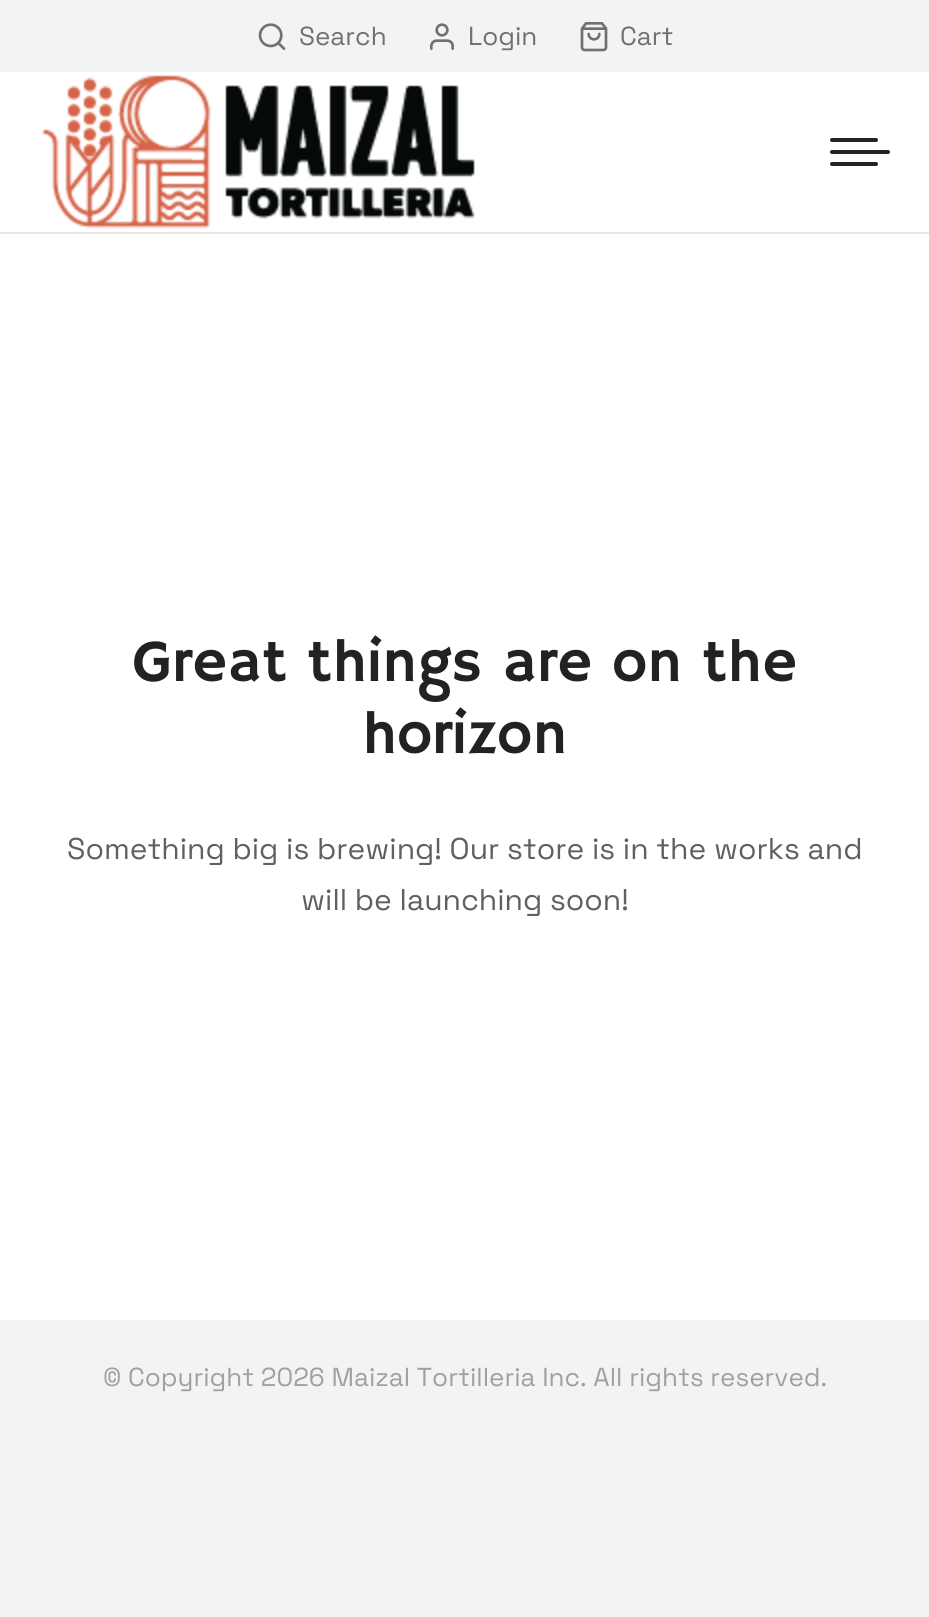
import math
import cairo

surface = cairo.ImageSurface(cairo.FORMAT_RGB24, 929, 1617)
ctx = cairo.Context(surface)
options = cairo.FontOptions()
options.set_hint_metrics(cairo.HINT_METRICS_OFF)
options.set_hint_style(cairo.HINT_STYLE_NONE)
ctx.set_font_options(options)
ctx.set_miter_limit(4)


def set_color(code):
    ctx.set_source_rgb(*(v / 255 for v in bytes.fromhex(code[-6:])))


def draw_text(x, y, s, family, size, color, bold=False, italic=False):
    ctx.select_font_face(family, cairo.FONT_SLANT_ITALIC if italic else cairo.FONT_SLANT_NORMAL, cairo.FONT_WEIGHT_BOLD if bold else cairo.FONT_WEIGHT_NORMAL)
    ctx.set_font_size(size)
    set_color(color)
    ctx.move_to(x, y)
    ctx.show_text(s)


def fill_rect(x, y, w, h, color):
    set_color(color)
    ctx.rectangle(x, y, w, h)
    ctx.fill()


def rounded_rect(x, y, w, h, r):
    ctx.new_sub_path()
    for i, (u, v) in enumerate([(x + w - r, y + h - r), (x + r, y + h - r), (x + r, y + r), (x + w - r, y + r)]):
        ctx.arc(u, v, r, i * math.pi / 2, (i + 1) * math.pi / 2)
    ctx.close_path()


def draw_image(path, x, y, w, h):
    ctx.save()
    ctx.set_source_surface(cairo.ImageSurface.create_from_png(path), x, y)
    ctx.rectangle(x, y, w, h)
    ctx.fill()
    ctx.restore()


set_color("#f1f3f4")
ctx.paint()
fill_rect(0, 72, 929, 1248, "#ffffff")
fill_rect(0, 232, 929, 2, "#e6e6e6")
draw_image("assets/img1.png", 258, 23, 28, 27)
draw_text(299, 45, "Search", "Space Grotesk", 26, "#707070")
draw_image("assets/img2.png", 430, 23, 24, 27)
draw_text(468, 45, "Login", "Space Grotesk", 26, "#707070")
draw_image("assets/img3.png", 580, 22, 28, 30)
draw_text(620, 45, "Cart", "Space Grotesk", 26, "#707070")
draw_image("assets/img4.png", 41, 75, 434, 154)
set_color("#222222")
rounded_rect(830, 138, 48, 4, 2)
ctx.fill()
rounded_rect(830, 150, 60, 4, 2)
ctx.fill()
rounded_rect(830, 162, 48, 4, 2)
ctx.fill()
draw_text(132, 681, "Great things are on the", "Hammersmith One", 60, "#222222")
draw_text(362, 753, "horizon", "Hammersmith One", 60, "#222222")
draw_text(67, 859, "Something big is brewing! Our store is in the works and", "Space Grotesk", 30, "#606060")
draw_text(301, 910, "will be launching soon!", "Space Grotesk", 30, "#606060")
draw_text(103, 1386, "© Copyright 2026 Maizal Tortilleria Inc. All rights reserved.", "Space Grotesk", 26, "#a0a0a0")
surface.write_to_png("output.png")
